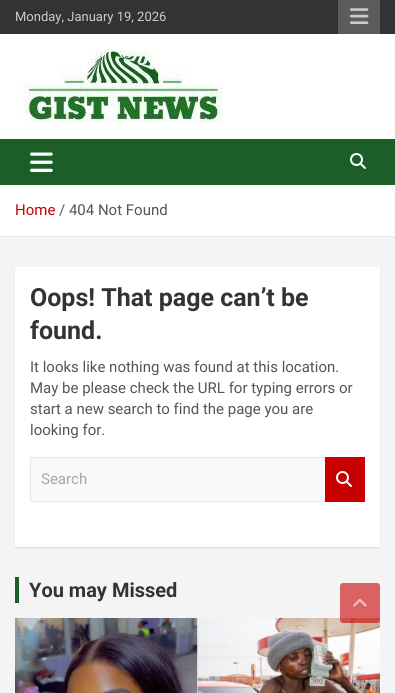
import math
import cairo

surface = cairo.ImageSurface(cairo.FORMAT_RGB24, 395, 693)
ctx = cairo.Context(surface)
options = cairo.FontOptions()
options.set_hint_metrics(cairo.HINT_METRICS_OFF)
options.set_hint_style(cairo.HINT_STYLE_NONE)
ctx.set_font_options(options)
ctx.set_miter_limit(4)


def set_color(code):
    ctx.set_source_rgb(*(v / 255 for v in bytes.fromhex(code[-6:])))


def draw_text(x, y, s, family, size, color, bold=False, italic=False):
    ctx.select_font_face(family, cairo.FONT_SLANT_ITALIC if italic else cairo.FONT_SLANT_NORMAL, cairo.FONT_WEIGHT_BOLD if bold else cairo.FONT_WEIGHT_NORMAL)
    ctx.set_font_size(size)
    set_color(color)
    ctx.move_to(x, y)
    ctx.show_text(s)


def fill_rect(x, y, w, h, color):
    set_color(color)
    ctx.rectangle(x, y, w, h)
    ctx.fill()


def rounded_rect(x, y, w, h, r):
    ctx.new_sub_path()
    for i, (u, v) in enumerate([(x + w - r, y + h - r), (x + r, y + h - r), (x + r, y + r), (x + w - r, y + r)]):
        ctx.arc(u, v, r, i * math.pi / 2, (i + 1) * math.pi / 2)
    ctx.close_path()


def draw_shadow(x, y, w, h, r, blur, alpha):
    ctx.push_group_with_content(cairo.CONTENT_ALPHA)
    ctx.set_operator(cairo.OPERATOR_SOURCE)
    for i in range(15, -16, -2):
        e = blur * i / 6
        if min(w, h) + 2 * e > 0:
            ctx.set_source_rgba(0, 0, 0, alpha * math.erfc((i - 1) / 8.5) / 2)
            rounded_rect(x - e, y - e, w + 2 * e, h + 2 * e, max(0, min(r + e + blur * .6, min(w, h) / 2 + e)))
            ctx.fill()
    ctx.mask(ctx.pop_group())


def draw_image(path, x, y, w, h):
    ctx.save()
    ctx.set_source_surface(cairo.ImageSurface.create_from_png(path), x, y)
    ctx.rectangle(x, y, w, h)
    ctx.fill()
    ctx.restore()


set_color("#f4f4f4")
ctx.paint()
fill_rect(0, 0, 395, 34, "#333333")
draw_text(15, 21, "Monday, January 19, 2026", "Roboto", 13, "#cccccc")
fill_rect(338, 0, 42, 34, "#5c5c5c")
draw_image("assets/img1.png", 350, 8, 19, 16)
fill_rect(0, 34, 395, 105, "#ffffff")
draw_image("assets/img2.png", 15, 50, 208, 73)
fill_rect(0, 139, 395, 46, "#1b5e28")
draw_image("assets/img3.png", 30, 152, 23, 20)
draw_image("assets/img4.png", 350, 153, 16, 16)
fill_rect(0, 185, 395, 51, "#ffffff")
fill_rect(0, 236, 395, 1, "#e6e6e6")
draw_text(15, 215, "Home", "Roboto", 15, "#c80000")
draw_text(59, 215, "/ 404 Not Found", "Roboto", 15, "#555555")
set_color("#000000")
draw_shadow(15, 268, 365, 280, 0, 0.5, 0.1)
fill_rect(15, 267, 365, 280, "#ffffff")
draw_text(30, 306, "Oops! That page can’t be", "Roboto", 25, "#333333", bold=True)
draw_text(30, 339, "found.", "Roboto", 25, "#333333", bold=True)
draw_text(30, 372, "It looks like nothing was found at this location.", "Roboto", 15, "#555555")
draw_text(30, 393, "May be please check the URL for typing errors or", "Roboto", 15, "#555555")
draw_text(30, 414, "start a new search to find the page you are", "Roboto", 15, "#555555")
draw_text(30, 435, "looking for.", "Roboto", 15, "#555555")
fill_rect(31, 458, 294, 43, "#f9f9f9")
set_color("#e8e8e8")
ctx.new_path()
ctx.move_to(30, 457)
ctx.line_to(325, 457)
ctx.line_to(325, 458)
ctx.line_to(31, 458)
ctx.close_path()
ctx.fill()
ctx.new_path()
ctx.move_to(325, 502)
ctx.line_to(30, 502)
ctx.line_to(31, 501)
ctx.line_to(325, 501)
ctx.close_path()
ctx.fill()
ctx.set_source_rgba(0, 0, 0, 0.09)
ctx.new_path()
ctx.move_to(30, 502)
ctx.line_to(30, 457)
ctx.line_to(31, 458)
ctx.line_to(31, 501)
ctx.close_path()
ctx.fill()
draw_text(41, 484, "Search", "Roboto", 15, "#a7a7a7")
fill_rect(325, 457, 40, 45, "#c80000")
draw_image("assets/img5.png", 336, 471, 16, 16)
fill_rect(15, 577, 4, 26, "#1b5e28")
draw_text(29, 597, "You may Missed", "Roboto", 20, "#333333", bold=True)
draw_image("assets/img6.png", 15, 618, 365, 75)
ctx.set_source_rgba(0.784, 0, 0, 0.6)
rounded_rect(340, 583, 40, 40, 3)
ctx.fill()
draw_image("assets/img7.png", 353, 598, 14, 9)
surface.write_to_png("output.png")
